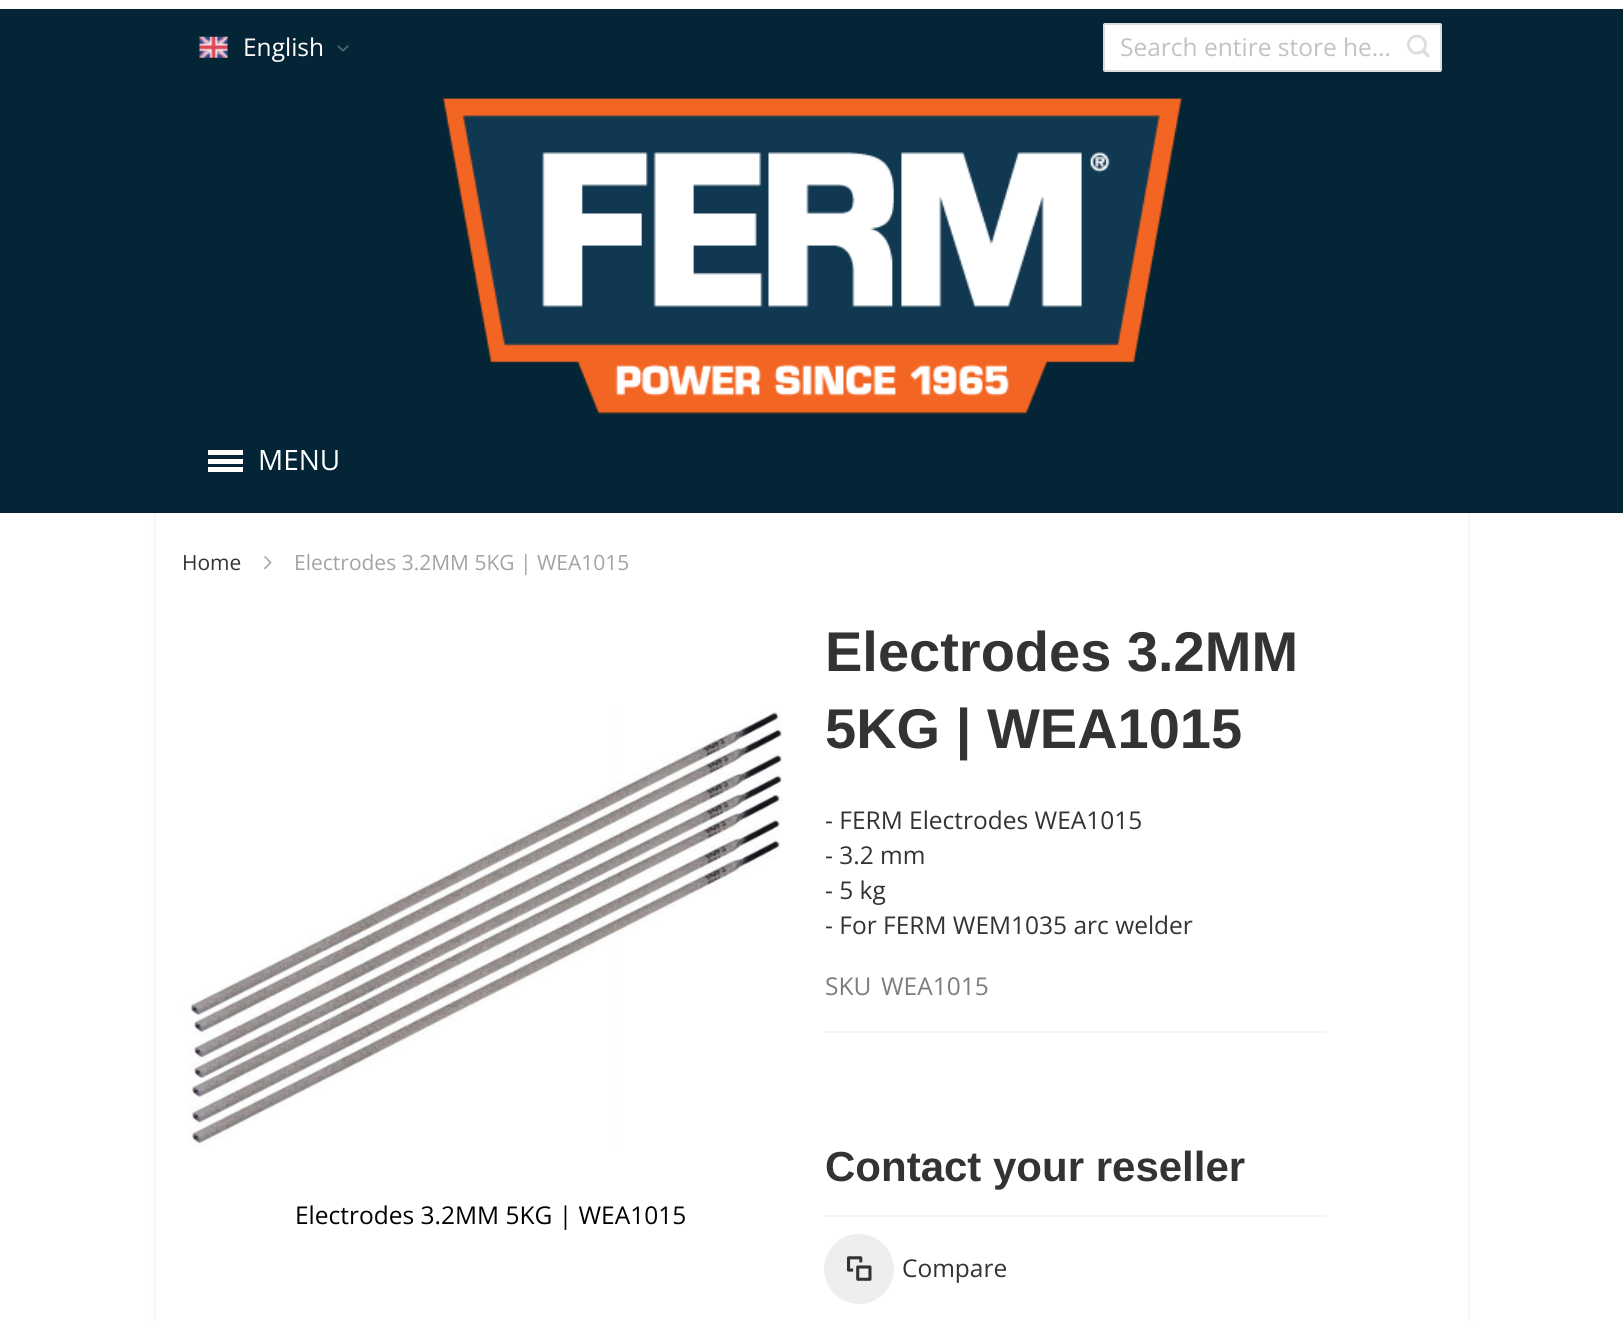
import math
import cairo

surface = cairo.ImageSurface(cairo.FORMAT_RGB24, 1623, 1321)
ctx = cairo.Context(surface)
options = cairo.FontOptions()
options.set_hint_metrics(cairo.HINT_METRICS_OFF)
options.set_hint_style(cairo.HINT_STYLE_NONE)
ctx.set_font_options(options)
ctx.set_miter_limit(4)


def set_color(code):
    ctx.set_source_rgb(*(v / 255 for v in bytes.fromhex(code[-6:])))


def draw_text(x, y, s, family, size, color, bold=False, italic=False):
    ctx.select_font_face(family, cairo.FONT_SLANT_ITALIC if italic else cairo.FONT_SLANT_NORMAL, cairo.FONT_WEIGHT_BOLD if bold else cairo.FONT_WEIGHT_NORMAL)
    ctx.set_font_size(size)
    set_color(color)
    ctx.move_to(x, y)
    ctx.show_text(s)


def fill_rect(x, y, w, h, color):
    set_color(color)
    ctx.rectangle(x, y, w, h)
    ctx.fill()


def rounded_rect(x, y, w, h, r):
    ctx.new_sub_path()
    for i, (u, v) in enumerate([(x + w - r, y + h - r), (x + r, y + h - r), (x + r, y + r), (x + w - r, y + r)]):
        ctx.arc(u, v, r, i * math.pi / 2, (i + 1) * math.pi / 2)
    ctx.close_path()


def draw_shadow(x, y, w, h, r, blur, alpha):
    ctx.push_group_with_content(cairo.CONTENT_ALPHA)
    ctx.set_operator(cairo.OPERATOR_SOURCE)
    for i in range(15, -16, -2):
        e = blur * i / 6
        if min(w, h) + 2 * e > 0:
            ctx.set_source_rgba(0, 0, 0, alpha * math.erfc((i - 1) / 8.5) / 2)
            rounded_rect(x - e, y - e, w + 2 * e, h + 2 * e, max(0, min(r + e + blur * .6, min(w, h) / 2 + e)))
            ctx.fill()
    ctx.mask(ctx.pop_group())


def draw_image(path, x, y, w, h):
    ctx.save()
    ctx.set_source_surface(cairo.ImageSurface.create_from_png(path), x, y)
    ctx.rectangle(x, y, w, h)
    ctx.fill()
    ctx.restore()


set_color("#ffffff")
ctx.paint()
fill_rect(0, 9, 1623, 504, "#042535")
draw_image("assets/img1.png", 199, 36, 29, 22)
draw_text(243, 56, "English", "Open Sans", 24.5, "#ffffff")
draw_image("assets/img2.png", 337, 45, 12, 7)
rounded_rect(1104, 24, 337, 47, 1)
ctx.fill_preserve()
set_color("#dddddd")
ctx.stroke()
draw_text(1120, 56, "Search entire store he…", "Open Sans", 24.5, "#c2c2c2")
draw_image("assets/img3.png", 1407, 34, 23, 24)
draw_image("assets/img4.png", 442, 98, 741, 317)
fill_rect(208, 450, 35, 5, "#ffffff")
fill_rect(208, 459, 35, 5, "#ffffff")
fill_rect(208, 467, 35, 5, "#ffffff")
draw_text(258, 470, "MENU", "Open Sans", 28, "#ffffff")
set_color("#000000")
draw_shadow(156, 516, 1312, 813, 0, 2.5, 0.1)
fill_rect(156, 513, 1312, 808, "#ffffff")
draw_text(182, 570, "Home", "Open Sans", 21, "#333333")
draw_image("assets/img5.png", 264, 556, 8, 14)
draw_text(294, 570, "Electrodes 3.2MM 5KG | WEA1015", "Open Sans", 21, "#a3a3a3")
draw_image("assets/img6.png", 182, 711, 600, 437)
draw_text(295, 1224, "Electrodes 3.2MM 5KG | WEA1015", "Open Sans", 24.5, "#000000")
draw_text(825, 671, "Electrodes 3.2MM", "Liberation Sans", 56, "#333333", bold=True)
draw_text(825, 748, "5KG | WEA1015", "Liberation Sans", 56, "#333333", bold=True)
draw_text(825, 829, "- FERM Electrodes WEA1015", "Open Sans", 24.5, "#333333")
draw_text(825, 864, "- 3.2 mm", "Open Sans", 24.5, "#333333")
draw_text(825, 899, "- 5 kg", "Open Sans", 24.5, "#333333")
draw_text(825, 934, "- For FERM WEM1035 arc welder", "Open Sans", 24.5, "#333333")
fill_rect(824, 1031, 501, 2, "#f5f5f5")
draw_text(825, 995, "SKU", "Open Sans", 24.5, "#7d7d7d")
draw_text(881, 995, "WEA1015", "Open Sans", 24.5, "#7d7d7d")
fill_rect(824, 1215, 501, 2, "#f5f5f5")
draw_text(825, 1181, "Contact your reseller", "Liberation Sans", 42, "#333333", bold=True)
set_color("#eeeeee")
ctx.new_path()
ctx.arc(859, 1269, 35, 0, 2 * math.pi)
ctx.fill()
draw_image("assets/img7.png", 847, 1256, 25, 25)
draw_text(902, 1277, "Compare", "Open Sans", 24.5, "#333333")
surface.write_to_png("output.png")
